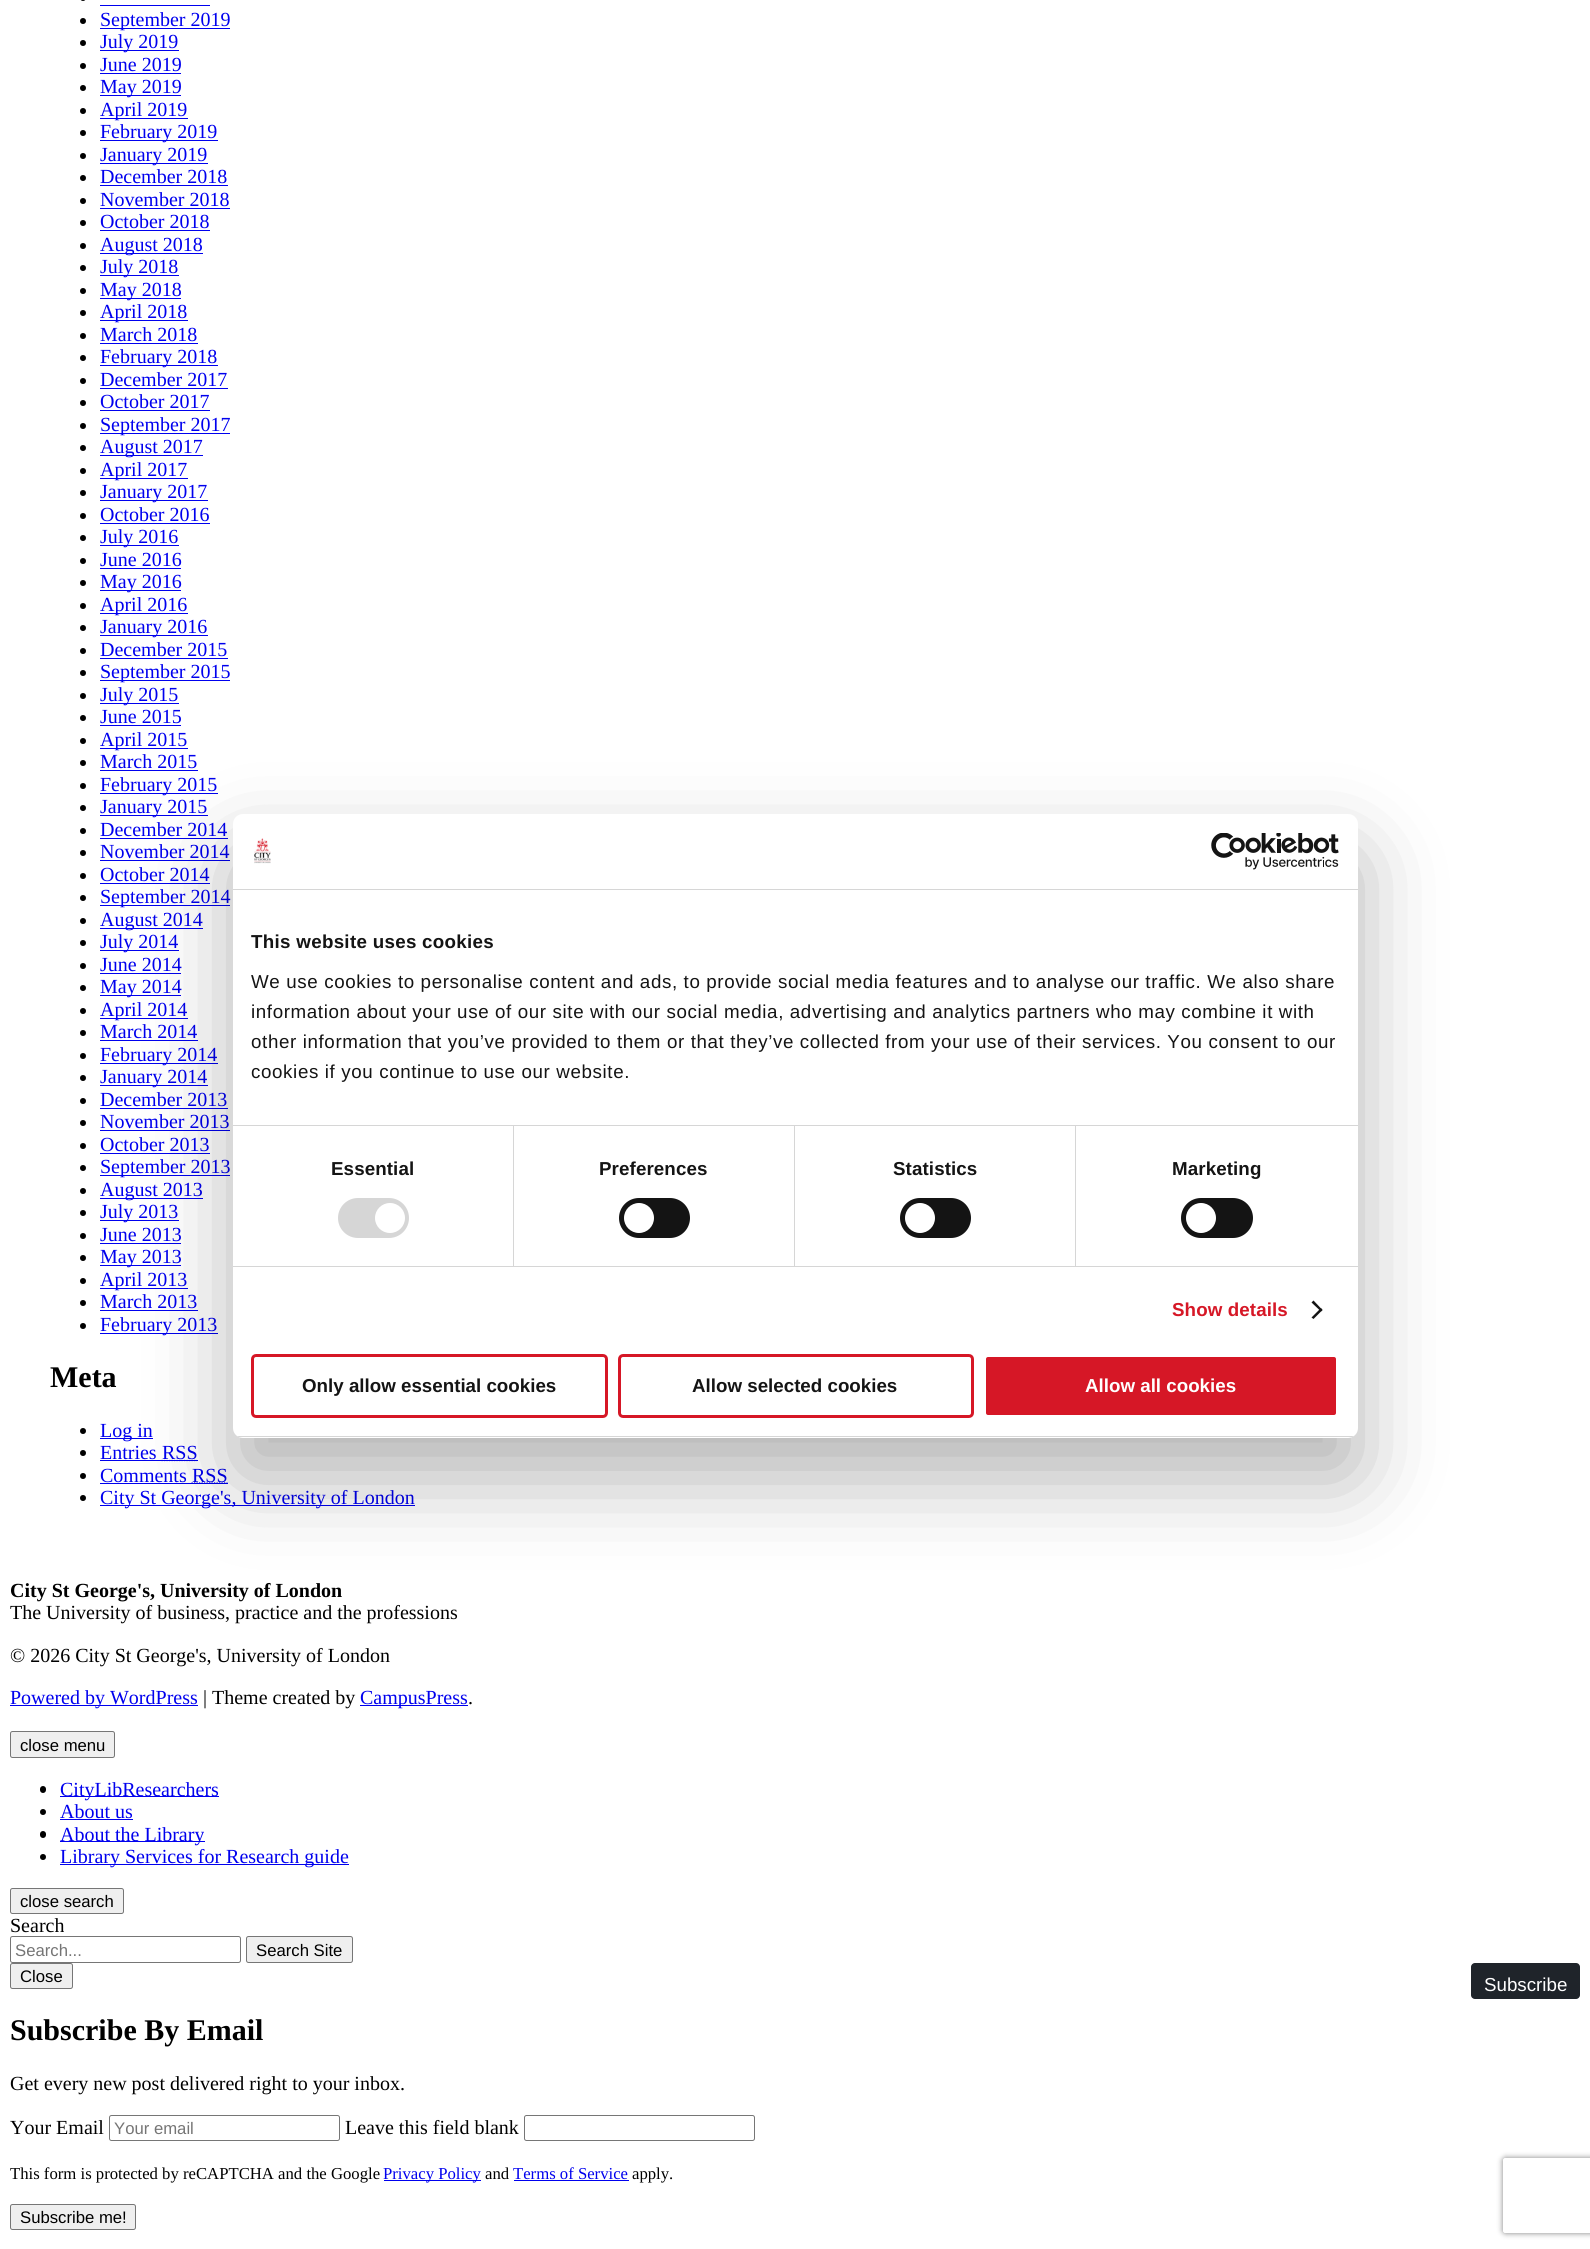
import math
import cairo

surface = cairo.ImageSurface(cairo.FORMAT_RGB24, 1590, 2249)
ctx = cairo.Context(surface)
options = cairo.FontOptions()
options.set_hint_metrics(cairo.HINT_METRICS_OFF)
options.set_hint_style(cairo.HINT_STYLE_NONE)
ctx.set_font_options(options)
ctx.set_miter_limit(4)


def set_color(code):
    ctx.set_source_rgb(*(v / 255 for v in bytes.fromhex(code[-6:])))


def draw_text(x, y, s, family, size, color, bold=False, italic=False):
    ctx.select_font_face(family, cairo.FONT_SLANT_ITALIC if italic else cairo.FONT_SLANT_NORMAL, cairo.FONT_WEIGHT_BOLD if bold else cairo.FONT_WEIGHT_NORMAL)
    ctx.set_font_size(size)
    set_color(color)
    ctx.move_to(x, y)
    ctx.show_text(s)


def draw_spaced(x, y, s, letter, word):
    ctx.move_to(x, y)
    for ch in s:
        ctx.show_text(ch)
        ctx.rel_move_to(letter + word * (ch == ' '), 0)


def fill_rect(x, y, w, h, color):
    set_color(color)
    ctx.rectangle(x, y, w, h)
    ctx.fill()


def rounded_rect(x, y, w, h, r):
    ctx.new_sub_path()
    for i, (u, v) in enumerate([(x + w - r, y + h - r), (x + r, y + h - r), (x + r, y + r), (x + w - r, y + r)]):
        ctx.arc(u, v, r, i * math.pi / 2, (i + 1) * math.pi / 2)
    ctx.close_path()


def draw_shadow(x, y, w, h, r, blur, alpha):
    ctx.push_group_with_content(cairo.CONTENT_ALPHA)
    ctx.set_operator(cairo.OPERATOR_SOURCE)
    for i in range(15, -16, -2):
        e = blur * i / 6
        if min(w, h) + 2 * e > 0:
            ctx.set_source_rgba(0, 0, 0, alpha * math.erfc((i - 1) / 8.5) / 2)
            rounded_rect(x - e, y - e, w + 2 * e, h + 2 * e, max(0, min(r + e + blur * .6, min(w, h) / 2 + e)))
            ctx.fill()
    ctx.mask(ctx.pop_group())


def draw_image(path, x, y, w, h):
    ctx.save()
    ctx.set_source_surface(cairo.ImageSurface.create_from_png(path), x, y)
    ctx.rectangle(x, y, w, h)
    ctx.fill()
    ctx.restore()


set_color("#ffffff")
ctx.paint()
set_color("#000000")
rounded_rect(80, -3, 6, 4, 3)
ctx.fill()
fill_rect(100, 5, 110, 1, "#0000ee")
set_color("#000000")
ctx.arc(83, 21, 3, 0, 2 * math.pi)
ctx.fill()
fill_rect(100, 28, 130, 1, "#0000ee")
draw_text(100, 26, "September 2019", "Liberation Serif", 20, "#0000ee")
set_color("#000000")
ctx.new_path()
ctx.arc(83, 43, 3, 0, 2 * math.pi)
ctx.fill()
fill_rect(100, 50, 79, 1, "#0000ee")
draw_text(100, 48, "July 2019", "Liberation Serif", 20, "#0000ee")
set_color("#000000")
ctx.new_path()
ctx.arc(83, 66, 3, 0, 2 * math.pi)
ctx.fill()
draw_text(100, 71, "June 2019", "Liberation Serif", 20, "#0000ee")
fill_rect(100, 73, 81, 1, "#0000ee")
set_color("#000000")
ctx.new_path()
ctx.arc(83, 88, 3, 0, 2 * math.pi)
ctx.fill()
fill_rect(100, 95, 81, 1, "#0000ee")
draw_text(100, 93, "May 2019", "Liberation Serif", 20, "#0000ee")
set_color("#000000")
ctx.new_path()
ctx.arc(83, 111, 3, 0, 2 * math.pi)
ctx.fill()
fill_rect(100, 118, 88, 1, "#0000ee")
draw_text(100, 116, "April 2019", "Liberation Serif", 20, "#0000ee")
set_color("#000000")
ctx.new_path()
ctx.arc(83, 133, 3, 0, 2 * math.pi)
ctx.fill()
fill_rect(100, 140, 118, 1, "#0000ee")
draw_text(100, 138, "February 2019", "Liberation Serif", 20, "#0000ee")
set_color("#000000")
ctx.new_path()
ctx.arc(83, 156, 3, 0, 2 * math.pi)
ctx.fill()
fill_rect(100, 163, 108, 1, "#0000ee")
draw_text(100, 161, "January 2019", "Liberation Serif", 20, "#0000ee")
set_color("#000000")
ctx.new_path()
ctx.arc(83, 178, 3, 0, 2 * math.pi)
ctx.fill()
draw_text(100, 183, "December 2018", "Liberation Serif", 20, "#0000ee")
fill_rect(100, 185, 128, 1, "#0000ee")
set_color("#000000")
ctx.new_path()
ctx.arc(83, 201, 3, 0, 2 * math.pi)
ctx.fill()
draw_text(100, 206, "November 2018", "Liberation Serif", 20, "#0000ee")
fill_rect(100, 208, 130, 1, "#0000ee")
set_color("#000000")
ctx.new_path()
ctx.arc(83, 223, 3, 0, 2 * math.pi)
ctx.fill()
draw_text(100, 228, "October 2018", "Liberation Serif", 20, "#0000ee")
fill_rect(100, 230, 110, 1, "#0000ee")
set_color("#000000")
ctx.new_path()
ctx.arc(83, 246, 3, 0, 2 * math.pi)
ctx.fill()
fill_rect(100, 253, 103, 1, "#0000ee")
draw_text(100, 251, "August 2018", "Liberation Serif", 20, "#0000ee")
set_color("#000000")
ctx.new_path()
ctx.arc(83, 268, 3, 0, 2 * math.pi)
ctx.fill()
fill_rect(100, 275, 79, 1, "#0000ee")
draw_text(100, 273, "July 2018", "Liberation Serif", 20, "#0000ee")
set_color("#000000")
ctx.new_path()
ctx.arc(83, 291, 3, 0, 2 * math.pi)
ctx.fill()
fill_rect(100, 298, 81, 1, "#0000ee")
draw_text(100, 296, "May 2018", "Liberation Serif", 20, "#0000ee")
set_color("#000000")
ctx.new_path()
ctx.arc(83, 313, 3, 0, 2 * math.pi)
ctx.fill()
fill_rect(100, 320, 88, 1, "#0000ee")
draw_text(100, 318, "April 2018", "Liberation Serif", 20, "#0000ee")
set_color("#000000")
ctx.new_path()
ctx.arc(83, 336, 3, 0, 2 * math.pi)
ctx.fill()
draw_text(100, 341, "March 2018", "Liberation Serif", 20, "#0000ee")
fill_rect(100, 343, 98, 1, "#0000ee")
set_color("#000000")
ctx.new_path()
ctx.arc(83, 358, 3, 0, 2 * math.pi)
ctx.fill()
fill_rect(100, 365, 118, 1, "#0000ee")
draw_text(100, 363, "February 2018", "Liberation Serif", 20, "#0000ee")
set_color("#000000")
ctx.new_path()
ctx.arc(83, 381, 3, 0, 2 * math.pi)
ctx.fill()
draw_text(100, 386, "December 2017", "Liberation Serif", 20, "#0000ee")
fill_rect(100, 388, 128, 1, "#0000ee")
set_color("#000000")
ctx.new_path()
ctx.arc(83, 403, 3, 0, 2 * math.pi)
ctx.fill()
draw_text(100, 408, "October 2017", "Liberation Serif", 20, "#0000ee")
fill_rect(100, 410, 110, 1, "#0000ee")
set_color("#000000")
ctx.new_path()
ctx.arc(83, 426, 3, 0, 2 * math.pi)
ctx.fill()
fill_rect(100, 433, 130, 1, "#0000ee")
draw_text(100, 431, "September 2017", "Liberation Serif", 20, "#0000ee")
set_color("#000000")
ctx.new_path()
ctx.arc(83, 448, 3, 0, 2 * math.pi)
ctx.fill()
fill_rect(100, 455, 103, 1, "#0000ee")
draw_text(100, 453, "August 2017", "Liberation Serif", 20, "#0000ee")
set_color("#000000")
ctx.new_path()
ctx.arc(83, 471, 3, 0, 2 * math.pi)
ctx.fill()
fill_rect(100, 478, 88, 1, "#0000ee")
draw_text(100, 476, "April 2017", "Liberation Serif", 20, "#0000ee")
set_color("#000000")
ctx.new_path()
ctx.arc(83, 493, 3, 0, 2 * math.pi)
ctx.fill()
fill_rect(100, 500, 108, 1, "#0000ee")
draw_text(100, 498, "January 2017", "Liberation Serif", 20, "#0000ee")
set_color("#000000")
ctx.new_path()
ctx.arc(83, 516, 3, 0, 2 * math.pi)
ctx.fill()
draw_text(100, 521, "October 2016", "Liberation Serif", 20, "#0000ee")
fill_rect(100, 523, 110, 1, "#0000ee")
set_color("#000000")
ctx.new_path()
ctx.arc(83, 538, 3, 0, 2 * math.pi)
ctx.fill()
fill_rect(100, 545, 79, 1, "#0000ee")
draw_text(100, 543, "July 2016", "Liberation Serif", 20, "#0000ee")
set_color("#000000")
ctx.new_path()
ctx.arc(83, 561, 3, 0, 2 * math.pi)
ctx.fill()
draw_text(100, 566, "June 2016", "Liberation Serif", 20, "#0000ee")
fill_rect(100, 568, 81, 1, "#0000ee")
set_color("#000000")
ctx.new_path()
ctx.arc(83, 583, 3, 0, 2 * math.pi)
ctx.fill()
fill_rect(100, 590, 81, 1, "#0000ee")
draw_text(100, 588, "May 2016", "Liberation Serif", 20, "#0000ee")
set_color("#000000")
ctx.new_path()
ctx.arc(83, 606, 3, 0, 2 * math.pi)
ctx.fill()
fill_rect(100, 613, 88, 1, "#0000ee")
draw_text(100, 611, "April 2016", "Liberation Serif", 20, "#0000ee")
set_color("#000000")
ctx.new_path()
ctx.arc(83, 628, 3, 0, 2 * math.pi)
ctx.fill()
fill_rect(100, 635, 108, 1, "#0000ee")
draw_text(100, 633, "January 2016", "Liberation Serif", 20, "#0000ee")
set_color("#000000")
ctx.new_path()
ctx.arc(83, 651, 3, 0, 2 * math.pi)
ctx.fill()
draw_text(100, 656, "December 2015", "Liberation Serif", 20, "#0000ee")
fill_rect(100, 658, 128, 1, "#0000ee")
set_color("#000000")
ctx.new_path()
ctx.arc(83, 673, 3, 0, 2 * math.pi)
ctx.fill()
fill_rect(100, 680, 130, 1, "#0000ee")
draw_text(100, 678, "September 2015", "Liberation Serif", 20, "#0000ee")
set_color("#000000")
ctx.new_path()
ctx.arc(83, 696, 3, 0, 2 * math.pi)
ctx.fill()
fill_rect(100, 703, 79, 1, "#0000ee")
draw_text(100, 701, "July 2015", "Liberation Serif", 20, "#0000ee")
set_color("#000000")
ctx.new_path()
ctx.arc(83, 718, 3, 0, 2 * math.pi)
ctx.fill()
draw_text(100, 723, "June 2015", "Liberation Serif", 20, "#0000ee")
fill_rect(100, 725, 81, 1, "#0000ee")
set_color("#000000")
ctx.new_path()
ctx.arc(83, 741, 3, 0, 2 * math.pi)
ctx.fill()
fill_rect(100, 748, 88, 1, "#0000ee")
draw_text(100, 746, "April 2015", "Liberation Serif", 20, "#0000ee")
set_color("#000000")
ctx.new_path()
ctx.arc(83, 763, 3, 0, 2 * math.pi)
ctx.fill()
draw_text(100, 768, "March 2015", "Liberation Serif", 20, "#0000ee")
fill_rect(100, 770, 98, 1, "#0000ee")
set_color("#000000")
ctx.new_path()
ctx.arc(83, 786, 3, 0, 2 * math.pi)
ctx.fill()
fill_rect(100, 793, 118, 1, "#0000ee")
draw_text(100, 791, "February 2015", "Liberation Serif", 20, "#0000ee")
set_color("#000000")
ctx.new_path()
ctx.arc(83, 808, 3, 0, 2 * math.pi)
ctx.fill()
fill_rect(100, 815, 108, 1, "#0000ee")
draw_text(100, 813, "January 2015", "Liberation Serif", 20, "#0000ee")
set_color("#000000")
ctx.new_path()
ctx.arc(83, 831, 3, 0, 2 * math.pi)
ctx.fill()
draw_text(100, 836, "December 2014", "Liberation Serif", 20, "#0000ee")
fill_rect(100, 838, 128, 1, "#0000ee")
set_color("#000000")
ctx.new_path()
ctx.arc(83, 853, 3, 0, 2 * math.pi)
ctx.fill()
draw_text(100, 858, "November 2014", "Liberation Serif", 20, "#0000ee")
fill_rect(100, 860, 130, 1, "#0000ee")
set_color("#000000")
ctx.new_path()
ctx.arc(83, 876, 3, 0, 2 * math.pi)
ctx.fill()
draw_text(100, 881, "October 2014", "Liberation Serif", 20, "#0000ee")
fill_rect(100, 883, 110, 1, "#0000ee")
set_color("#000000")
ctx.new_path()
ctx.arc(83, 898, 3, 0, 2 * math.pi)
ctx.fill()
fill_rect(100, 905, 130, 1, "#0000ee")
draw_text(100, 903, "September 2014", "Liberation Serif", 20, "#0000ee")
set_color("#000000")
ctx.new_path()
ctx.arc(83, 921, 3, 0, 2 * math.pi)
ctx.fill()
fill_rect(100, 928, 103, 1, "#0000ee")
draw_text(100, 926, "August 2014", "Liberation Serif", 20, "#0000ee")
set_color("#000000")
ctx.new_path()
ctx.arc(83, 943, 3, 0, 2 * math.pi)
ctx.fill()
fill_rect(100, 950, 79, 1, "#0000ee")
draw_text(100, 948, "July 2014", "Liberation Serif", 20, "#0000ee")
set_color("#000000")
ctx.new_path()
ctx.arc(83, 966, 3, 0, 2 * math.pi)
ctx.fill()
draw_text(100, 971, "June 2014", "Liberation Serif", 20, "#0000ee")
fill_rect(100, 973, 81, 1, "#0000ee")
set_color("#000000")
ctx.new_path()
ctx.arc(83, 988, 3, 0, 2 * math.pi)
ctx.fill()
fill_rect(100, 995, 81, 1, "#0000ee")
draw_text(100, 993, "May 2014", "Liberation Serif", 20, "#0000ee")
set_color("#000000")
ctx.new_path()
ctx.arc(83, 1011, 3, 0, 2 * math.pi)
ctx.fill()
fill_rect(100, 1018, 88, 1, "#0000ee")
draw_text(100, 1016, "April 2014", "Liberation Serif", 20, "#0000ee")
set_color("#000000")
ctx.new_path()
ctx.arc(83, 1033, 3, 0, 2 * math.pi)
ctx.fill()
draw_text(100, 1038, "March 2014", "Liberation Serif", 20, "#0000ee")
fill_rect(100, 1040, 98, 1, "#0000ee")
set_color("#000000")
ctx.new_path()
ctx.arc(83, 1056, 3, 0, 2 * math.pi)
ctx.fill()
fill_rect(100, 1063, 118, 1, "#0000ee")
draw_text(100, 1061, "February 2014", "Liberation Serif", 20, "#0000ee")
set_color("#000000")
ctx.new_path()
ctx.arc(83, 1078, 3, 0, 2 * math.pi)
ctx.fill()
fill_rect(100, 1085, 108, 1, "#0000ee")
draw_text(100, 1083, "January 2014", "Liberation Serif", 20, "#0000ee")
set_color("#000000")
ctx.new_path()
ctx.arc(83, 1101, 3, 0, 2 * math.pi)
ctx.fill()
draw_text(100, 1106, "December 2013", "Liberation Serif", 20, "#0000ee")
fill_rect(100, 1108, 128, 1, "#0000ee")
set_color("#000000")
ctx.new_path()
ctx.arc(83, 1123, 3, 0, 2 * math.pi)
ctx.fill()
draw_text(100, 1128, "November 2013", "Liberation Serif", 20, "#0000ee")
fill_rect(100, 1130, 130, 1, "#0000ee")
set_color("#000000")
ctx.new_path()
ctx.arc(83, 1146, 3, 0, 2 * math.pi)
ctx.fill()
draw_text(100, 1151, "October 2013", "Liberation Serif", 20, "#0000ee")
fill_rect(100, 1153, 110, 1, "#0000ee")
set_color("#000000")
ctx.new_path()
ctx.arc(83, 1168, 3, 0, 2 * math.pi)
ctx.fill()
fill_rect(100, 1175, 130, 1, "#0000ee")
draw_text(100, 1173, "September 2013", "Liberation Serif", 20, "#0000ee")
set_color("#000000")
ctx.new_path()
ctx.arc(83, 1191, 3, 0, 2 * math.pi)
ctx.fill()
fill_rect(100, 1198, 103, 1, "#0000ee")
draw_text(100, 1196, "August 2013", "Liberation Serif", 20, "#0000ee")
set_color("#000000")
ctx.new_path()
ctx.arc(83, 1213, 3, 0, 2 * math.pi)
ctx.fill()
fill_rect(100, 1220, 79, 1, "#0000ee")
draw_text(100, 1218, "July 2013", "Liberation Serif", 20, "#0000ee")
set_color("#000000")
ctx.new_path()
ctx.arc(83, 1236, 3, 0, 2 * math.pi)
ctx.fill()
draw_text(100, 1241, "June 2013", "Liberation Serif", 20, "#0000ee")
fill_rect(100, 1243, 81, 1, "#0000ee")
set_color("#000000")
ctx.new_path()
ctx.arc(83, 1258, 3, 0, 2 * math.pi)
ctx.fill()
fill_rect(100, 1265, 81, 1, "#0000ee")
draw_text(100, 1263, "May 2013", "Liberation Serif", 20, "#0000ee")
set_color("#000000")
ctx.new_path()
ctx.arc(83, 1281, 3, 0, 2 * math.pi)
ctx.fill()
fill_rect(100, 1288, 88, 1, "#0000ee")
draw_text(100, 1286, "April 2013", "Liberation Serif", 20, "#0000ee")
set_color("#000000")
ctx.new_path()
ctx.arc(83, 1303, 3, 0, 2 * math.pi)
ctx.fill()
draw_text(100, 1308, "March 2013", "Liberation Serif", 20, "#0000ee")
fill_rect(100, 1310, 98, 1, "#0000ee")
set_color("#000000")
ctx.new_path()
ctx.arc(83, 1326, 3, 0, 2 * math.pi)
ctx.fill()
fill_rect(100, 1333, 118, 1, "#0000ee")
draw_text(100, 1331, "February 2013", "Liberation Serif", 20, "#0000ee")
draw_text(50, 1387, "Meta", "Liberation Serif", 30, "#000000", bold=True)
ctx.new_path()
ctx.arc(83, 1431, 3, 0, 2 * math.pi)
ctx.fill()
fill_rect(100, 1438, 53, 1, "#0000ee")
draw_text(100, 1437, "Log in", "Liberation Serif", 20, "#0000ee")
set_color("#000000")
ctx.new_path()
ctx.arc(83, 1453, 3, 0, 2 * math.pi)
ctx.fill()
draw_text(100, 1459, "Entries", "Liberation Serif", 20, "#0000ee")
fill_rect(100, 1460, 61, 1, "#0000ee")
ctx.new_path()
ctx.move_to(161.5, 1460.5)
ctx.line_to(197, 1460.5)
ctx.set_line_width(1.2)
ctx.set_dash([1.25, 1.25])
ctx.stroke()
draw_text(162, 1459, "RSS", "Liberation Serif", 20, "#0000ee")
fill_rect(161, 1460, 37, 1, "#0000ee")
set_color("#000000")
ctx.new_path()
ctx.arc(83, 1476, 3, 0, 2 * math.pi)
ctx.fill()
draw_text(100, 1482, "Comments", "Liberation Serif", 20, "#0000ee")
fill_rect(100, 1483, 91, 1, "#0000ee")
ctx.new_path()
ctx.move_to(191.5, 1483)
ctx.line_to(227.5, 1483)
ctx.stroke()
draw_text(192, 1482, "RSS", "Liberation Serif", 20, "#0000ee")
fill_rect(191, 1483, 37, 1, "#0000ee")
set_color("#000000")
ctx.new_path()
ctx.arc(83, 1498, 3, 0, 2 * math.pi)
ctx.fill()
fill_rect(100, 1505, 315, 1, "#0000ee")
draw_text(100, 1504, "City St George's, University of London", "Liberation Serif", 20, "#0000ee")
draw_text(10, 1597, "City St George's, University of London", "Liberation Serif", 20, "#000000", bold=True)
draw_text(10, 1619, "The University of business, practice and the professions", "Liberation Serif", 20, "#000000")
draw_text(10, 1662, "© 2026 City St George's, University of London", "Liberation Serif", 20, "#000000")
fill_rect(10, 1705, 188, 1, "#0000ee")
draw_text(10, 1704, "Powered by WordPress", "Liberation Serif", 20, "#0000ee")
draw_text(203, 1704, "| Theme created by", "Liberation Serif", 20, "#000000")
fill_rect(360, 1705, 108, 1, "#0000ee")
draw_text(360, 1704, "CampusPress", "Liberation Serif", 20, "#0000ee")
draw_text(468, 1704, ".", "Liberation Serif", 20, "#000000")
set_color("#000000")
draw_shadow(233, 854, 1125, 624, 10, 42.5, 0.3)
set_color("#ffffff")
rounded_rect(233, 814, 1125, 624, 10)
ctx.fill()
fill_rect(233, 889, 1125, 1, "#d6d6d6")
draw_image("assets/img1.png", 254, 838, 17, 26)
draw_image("assets/img2.png", 1211, 833, 128, 37)
fill_rect(233, 1125, 1125, 1, "#d6d6d6")
ctx.select_font_face("Liberation Sans", cairo.FONT_SLANT_NORMAL, cairo.FONT_WEIGHT_BOLD)
ctx.set_font_size(18.75)
set_color("#141414")
draw_spaced(251, 948, "This website uses cookies", 0.3, 0)
ctx.select_font_face("Liberation Sans")
draw_spaced(251, 988, "We use cookies to personalise content and ads, to provide social media features and to analyse our traffic. We also share", 0.62, 0)
draw_spaced(251, 1018, "information about your use of our site with our social media, advertising and analytics partners who may combine it with", 0.62, 0)
draw_spaced(251, 1048, "other information that you’ve provided to them or that they’ve collected from your use of their services. You consent to our", 0.62, 0)
draw_spaced(251, 1078, "cookies if you continue to use our website.", 0.62, 0)
fill_rect(233, 1266, 1125, 1, "#d6d6d6")
fill_rect(513, 1126, 1, 140, "#d6d6d6")
ctx.select_font_face("Liberation Sans", cairo.FONT_SLANT_NORMAL, cairo.FONT_WEIGHT_BOLD)
set_color("#141414")
draw_spaced(331, 1175, "Essential", 0.1, 0)
set_color("#d6d6d6")
rounded_rect(338, 1198, 71, 40, 20)
ctx.fill()
set_color("#ffffff")
ctx.arc(390, 1218, 15, 0, 2 * math.pi)
ctx.fill()
fill_rect(794, 1126, 1, 140, "#d6d6d6")
set_color("#141414")
draw_spaced(599, 1175, "Preferences", 0.1, 0)
rounded_rect(619, 1198, 71, 40, 20)
ctx.fill()
set_color("#ffffff")
ctx.arc(639, 1218, 15, 0, 2 * math.pi)
ctx.fill()
fill_rect(1075, 1126, 1, 140, "#d6d6d6")
set_color("#141414")
draw_spaced(893, 1175, "Statistics", 0.1, 0)
rounded_rect(900, 1198, 71, 40, 20)
ctx.fill()
set_color("#ffffff")
ctx.arc(920, 1218, 15, 0, 2 * math.pi)
ctx.fill()
set_color("#141414")
draw_spaced(1172, 1175, "Marketing", 0.1, 0)
rounded_rect(1181, 1198, 72, 40, 20)
ctx.fill()
set_color("#ffffff")
ctx.arc(1201, 1218, 15, 0, 2 * math.pi)
ctx.fill()
set_color("#d61726")
draw_spaced(1172, 1316, "Show details", 0.1, 0)
set_color("#141414")
ctx.new_path()
ctx.move_to(1313.5, 1300.5)
ctx.line_to(1322.5, 1310)
ctx.line_to(1321, 1311.5)
ctx.line_to(1311.5, 1302.5)
ctx.close_path()
ctx.fill()
ctx.new_path()
ctx.move_to(1321, 1308)
ctx.line_to(1322.5, 1310)
ctx.line_to(1313.5, 1319)
ctx.line_to(1311.5, 1317.5)
ctx.close_path()
ctx.fill()
ctx.save()
rounded_rect(233, 814, 1125, 624, 10)
ctx.clip()
fill_rect(233, 1436, 1125, 1, "#d6d6d6")
ctx.restore()
rounded_rect(252.5, 1355.5, 354, 61, 3.5)
set_color("#d61726")
ctx.set_line_width(3)
ctx.set_dash([])
ctx.stroke()
draw_text(302, 1392, "Only allow essential cookies", "Liberation Sans", 18.75, "#141414", bold=True)
rounded_rect(619.5, 1355.5, 353, 61, 3.5)
set_color("#d61726")
ctx.stroke()
draw_text(692, 1392, "Allow selected cookies", "Liberation Sans", 18.75, "#141414", bold=True)
set_color("#d61726")
rounded_rect(984.5, 1355.5, 353, 61, 3.5)
ctx.fill_preserve()
set_color("#ffffff")
ctx.stroke()
draw_text(1085, 1392, "Allow all cookies", "Liberation Sans", 18.75, "#ffffff", bold=True)
set_color("#efefef")
rounded_rect(10.5, 1731.5, 104, 26, 2)
ctx.fill_preserve()
set_color("#767676")
ctx.set_line_width(1)
ctx.stroke()
draw_text(20, 1751, "close menu", "Liberation Sans", 16.7, "#000000")
rounded_rect(40, 1786, 6, 7, 3)
ctx.fill()
fill_rect(60, 1796, 159, 1, "#0000ee")
draw_text(60, 1796, "CityLibResearchers", "Liberation Serif", 20, "#0000ee")
set_color("#000000")
ctx.new_path()
ctx.arc(43, 1812, 3, 0, 2 * math.pi)
ctx.fill()
draw_text(60, 1818, "About us", "Liberation Serif", 20, "#0000ee")
fill_rect(60, 1819, 73, 1, "#0000ee")
set_color("#000000")
rounded_rect(40, 1831, 6, 7, 3)
ctx.fill()
fill_rect(60, 1841, 145, 1, "#0000ee")
draw_text(60, 1841, "About the Library", "Liberation Serif", 20, "#0000ee")
set_color("#000000")
ctx.new_path()
ctx.arc(43, 1857, 3, 0, 2 * math.pi)
ctx.fill()
fill_rect(60, 1864, 289, 1, "#0000ee")
draw_text(60, 1863, "Library Services for Research guide", "Liberation Serif", 20, "#0000ee")
set_color("#efefef")
rounded_rect(10.5, 1888.5, 113, 25, 2)
ctx.fill_preserve()
set_color("#767676")
ctx.stroke()
draw_text(20, 1907, "close search", "Liberation Sans", 16.7, "#000000")
draw_text(10, 1932, "Search", "Liberation Serif", 20, "#000000")
rounded_rect(10.5, 1936.5, 230, 26, 2)
set_color("#767676")
ctx.stroke()
draw_text(15, 1956, "Search...", "Liberation Sans", 16.7, "#757575")
set_color("#efefef")
rounded_rect(246.5, 1936.5, 106, 26, 2)
ctx.fill_preserve()
set_color("#767676")
ctx.stroke()
draw_text(256, 1956, "Search Site", "Liberation Sans", 16.7, "#000000")
set_color("#efefef")
rounded_rect(10.5, 1963.5, 62, 25, 2)
ctx.fill_preserve()
set_color("#767676")
ctx.stroke()
draw_text(20, 1982, "Close", "Liberation Sans", 16.7, "#000000")
draw_text(10, 2040, "Subscribe By Email", "Liberation Serif", 30, "#000000", bold=True)
draw_text(10, 2090, "Get every new post delivered right to your inbox.", "Liberation Serif", 20, "#000000")
draw_text(10, 2134, "Your Email", "Liberation Serif", 20, "#000000")
rounded_rect(109.5, 2115.5, 230, 25, 2)
set_color("#767676")
ctx.stroke()
draw_text(114, 2134, "Your email", "Liberation Sans", 16.7, "#757575")
draw_text(345, 2134, "Leave this field blank", "Liberation Serif", 20, "#000000")
rounded_rect(524.5, 2115.5, 230, 25, 2)
set_color("#767676")
ctx.stroke()
draw_text(10, 2179, "This form is protected by reCAPTCHA and the Google", "Liberation Serif", 16.7, "#000000")
fill_rect(384, 2180, 97, 1, "#0000ee")
draw_text(383, 2179, "Privacy Policy", "Liberation Serif", 16.7, "#0000ee")
draw_text(485, 2179, "and", "Liberation Serif", 16.7, "#000000")
draw_text(513, 2179, "Terms of Service", "Liberation Serif", 16.7, "#0000ee")
fill_rect(514, 2180, 115, 1, "#0000ee")
draw_text(632, 2179, "apply.", "Liberation Serif", 16.7, "#000000")
set_color("#efefef")
rounded_rect(10.5, 2204.5, 125, 25, 2)
ctx.fill_preserve()
set_color("#767676")
ctx.stroke()
draw_text(20, 2223, "Subscribe me!", "Liberation Sans", 16.7, "#000000")
set_color("#1f242a")
rounded_rect(1471, 1963, 109, 36, 4)
ctx.fill()
draw_text(1484, 1991, "Subscribe", "Liberation Sans", 18.75, "#ffffff")
ctx.save()
ctx.set_fill_rule(cairo.FILL_RULE_EVEN_ODD)
ctx.new_path()
ctx.move_to(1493, 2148)
ctx.line_to(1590, 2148)
ctx.line_to(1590, 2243)
ctx.line_to(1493, 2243)
ctx.close_path()
ctx.move_to(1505.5, 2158)
ctx.line_to(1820.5, 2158)
ctx.curve_to(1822, 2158, 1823, 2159, 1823, 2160.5)
ctx.line_to(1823, 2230.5)
ctx.curve_to(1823, 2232, 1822, 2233, 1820.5, 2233)
ctx.line_to(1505.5, 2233)
ctx.curve_to(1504, 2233, 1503, 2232, 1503, 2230.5)
ctx.line_to(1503, 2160.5)
ctx.curve_to(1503, 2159, 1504, 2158, 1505.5, 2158)
ctx.close_path()
ctx.clip()
set_color("#808080")
draw_shadow(1503, 2158, 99, 75, 2.5, 3, 1)
ctx.restore()
surface.write_to_png("output.png")
